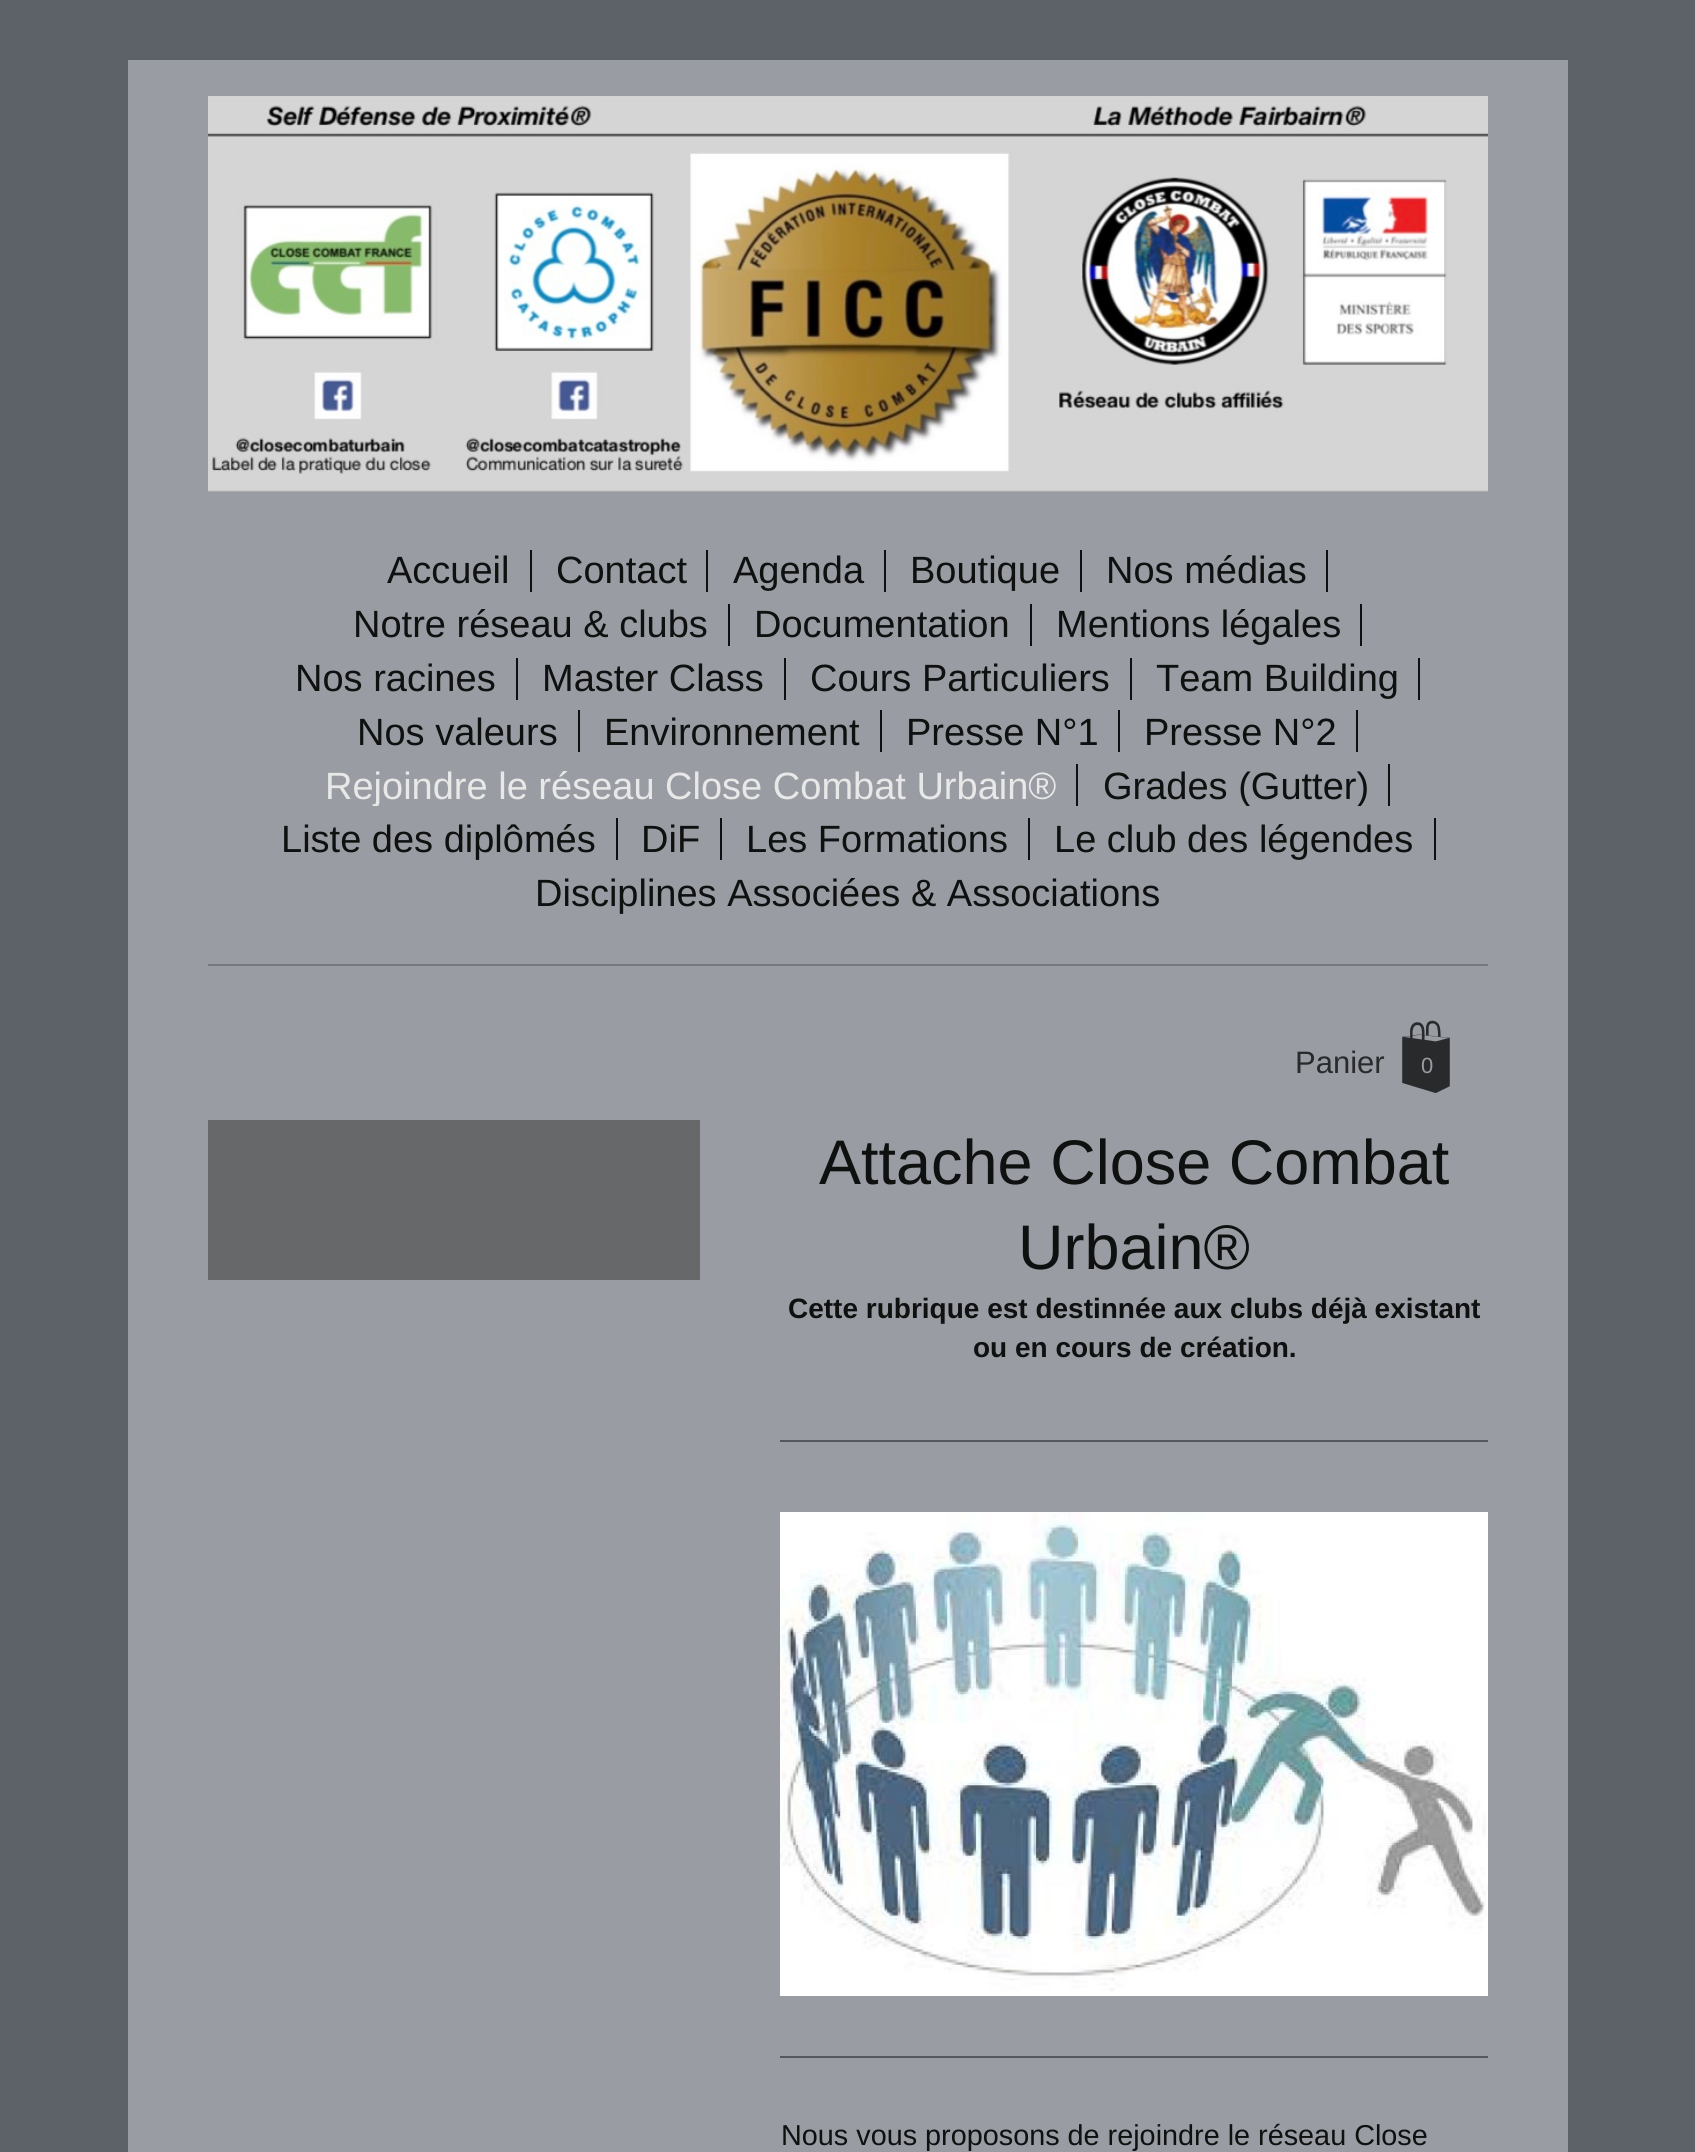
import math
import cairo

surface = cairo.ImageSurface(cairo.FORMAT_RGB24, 1695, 2152)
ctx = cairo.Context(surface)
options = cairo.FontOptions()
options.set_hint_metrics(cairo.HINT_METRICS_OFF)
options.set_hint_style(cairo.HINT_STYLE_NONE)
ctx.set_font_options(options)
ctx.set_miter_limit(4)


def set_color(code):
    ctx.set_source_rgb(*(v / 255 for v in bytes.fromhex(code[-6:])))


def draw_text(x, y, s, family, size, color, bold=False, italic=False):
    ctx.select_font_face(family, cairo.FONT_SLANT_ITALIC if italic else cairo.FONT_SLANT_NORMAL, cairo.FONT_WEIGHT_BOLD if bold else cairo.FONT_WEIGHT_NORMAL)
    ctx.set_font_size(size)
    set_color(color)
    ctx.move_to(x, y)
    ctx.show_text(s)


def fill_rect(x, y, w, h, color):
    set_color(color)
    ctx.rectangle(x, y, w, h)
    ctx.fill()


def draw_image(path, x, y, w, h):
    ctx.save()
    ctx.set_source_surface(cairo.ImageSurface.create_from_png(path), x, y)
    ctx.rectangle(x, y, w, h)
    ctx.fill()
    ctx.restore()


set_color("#5d6268")
ctx.paint()
fill_rect(128, 60, 1440, 2092, "#999ca2")
draw_image("assets/img1.png", 208, 96, 1280, 396)
fill_rect(208, 964, 1280, 2, "#767980")
fill_rect(530, 550, 2, 42, "#0f1010")
draw_text(387, 583, "Accueil", "Liberation Sans", 38, "#0f1010")
fill_rect(706, 550, 2, 42, "#0f1010")
draw_text(556, 583, "Contact", "Liberation Sans", 38, "#0f1010")
fill_rect(884, 550, 2, 42, "#0f1010")
draw_text(733, 583, "Agenda", "Liberation Sans", 38, "#0f1010")
fill_rect(1080, 550, 2, 42, "#0f1010")
draw_text(910, 583, "Boutique", "Liberation Sans", 38, "#0f1010")
fill_rect(1326, 550, 2, 42, "#0f1010")
draw_text(1106, 583, "Nos médias", "Liberation Sans", 38, "#0f1010")
fill_rect(728, 604, 2, 42, "#0f1010")
draw_text(353, 637, "Notre réseau & clubs", "Liberation Sans", 38, "#0f1010")
fill_rect(1030, 604, 2, 42, "#0f1010")
draw_text(754, 637, "Documentation", "Liberation Sans", 38, "#0f1010")
fill_rect(1360, 604, 2, 42, "#0f1010")
draw_text(1056, 637, "Mentions légales", "Liberation Sans", 38, "#0f1010")
fill_rect(516, 658, 2, 42, "#0f1010")
draw_text(295, 691, "Nos racines", "Liberation Sans", 38, "#0f1010")
fill_rect(784, 658, 2, 42, "#0f1010")
draw_text(542, 691, "Master Class", "Liberation Sans", 38, "#0f1010")
fill_rect(1130, 658, 2, 42, "#0f1010")
draw_text(810, 691, "Cours Particuliers", "Liberation Sans", 38, "#0f1010")
fill_rect(1418, 658, 2, 42, "#0f1010")
draw_text(1156, 691, "Team Building", "Liberation Sans", 38, "#0f1010")
fill_rect(578, 710, 2, 42, "#0f1010")
draw_text(357, 745, "Nos valeurs", "Liberation Sans", 38, "#0f1010")
fill_rect(880, 710, 2, 42, "#0f1010")
draw_text(604, 745, "Environnement", "Liberation Sans", 38, "#0f1010")
fill_rect(1118, 710, 2, 42, "#0f1010")
draw_text(906, 745, "Presse N°1", "Liberation Sans", 38, "#0f1010")
fill_rect(1356, 710, 2, 42, "#0f1010")
draw_text(1144, 745, "Presse N°2", "Liberation Sans", 38, "#0f1010")
fill_rect(1076, 764, 2, 42, "#0f1010")
ctx.save()
ctx.rectangle(306, 764, 770, 42)
ctx.clip()
draw_text(325, 799, "Rejoindre le réseau Close Combat Urbain®", "Liberation Sans", 38, "#e8e8e8")
ctx.restore()
fill_rect(1388, 764, 2, 42, "#0f1010")
ctx.save()
ctx.rectangle(1082, 764, 306, 42)
ctx.clip()
draw_text(1103, 799, "Grades (Gutter)", "Liberation Sans", 38, "#0f1010")
ctx.restore()
fill_rect(616, 818, 2, 42, "#0f1010")
draw_text(281, 852, "Liste des diplômés", "Liberation Sans", 38, "#0f1010")
fill_rect(720, 818, 2, 42, "#0f1010")
draw_text(641, 852, "DiF", "Liberation Sans", 38, "#0f1010")
fill_rect(1028, 818, 2, 42, "#0f1010")
draw_text(746, 852, "Les Formations", "Liberation Sans", 38, "#0f1010")
fill_rect(1434, 818, 2, 42, "#0f1010")
draw_text(1054, 852, "Le club des légendes", "Liberation Sans", 38, "#0f1010")
draw_text(535, 906, "Disciplines Associées & Associations", "Liberation Sans", 38, "#0f1010")
draw_text(1295, 1073, "Panier", "Liberation Sans", 31, "#292a2c")
draw_image("assets/img2.png", 1402, 1020, 48, 73)
draw_text(1421, 1073, "0", "Liberation Sans", 22, "#999ca2")
fill_rect(208, 1120, 492, 160, "#67686a")
draw_text(819, 1184, "Attache Close Combat", "Liberation Sans", 63, "#0f1010")
draw_text(1018, 1269, "Urbain®", "Liberation Sans", 63, "#0f1010")
draw_text(788, 1318, "Cette rubrique est destinnée aux clubs déjà existant", "Liberation Sans", 28, "#0f1010", bold=True)
draw_text(973, 1357, "ou en cours de création.", "Liberation Sans", 28, "#0f1010", bold=True)
fill_rect(780, 1440, 708, 2, "#55575c")
draw_image("assets/img3.png", 780, 1512, 708, 484)
fill_rect(780, 2056, 708, 2, "#55575c")
draw_text(781, 2145, "Nous vous proposons de rejoindre le réseau Close", "Liberation Sans", 28.8, "#0f1010")
surface.write_to_png("output.png")
